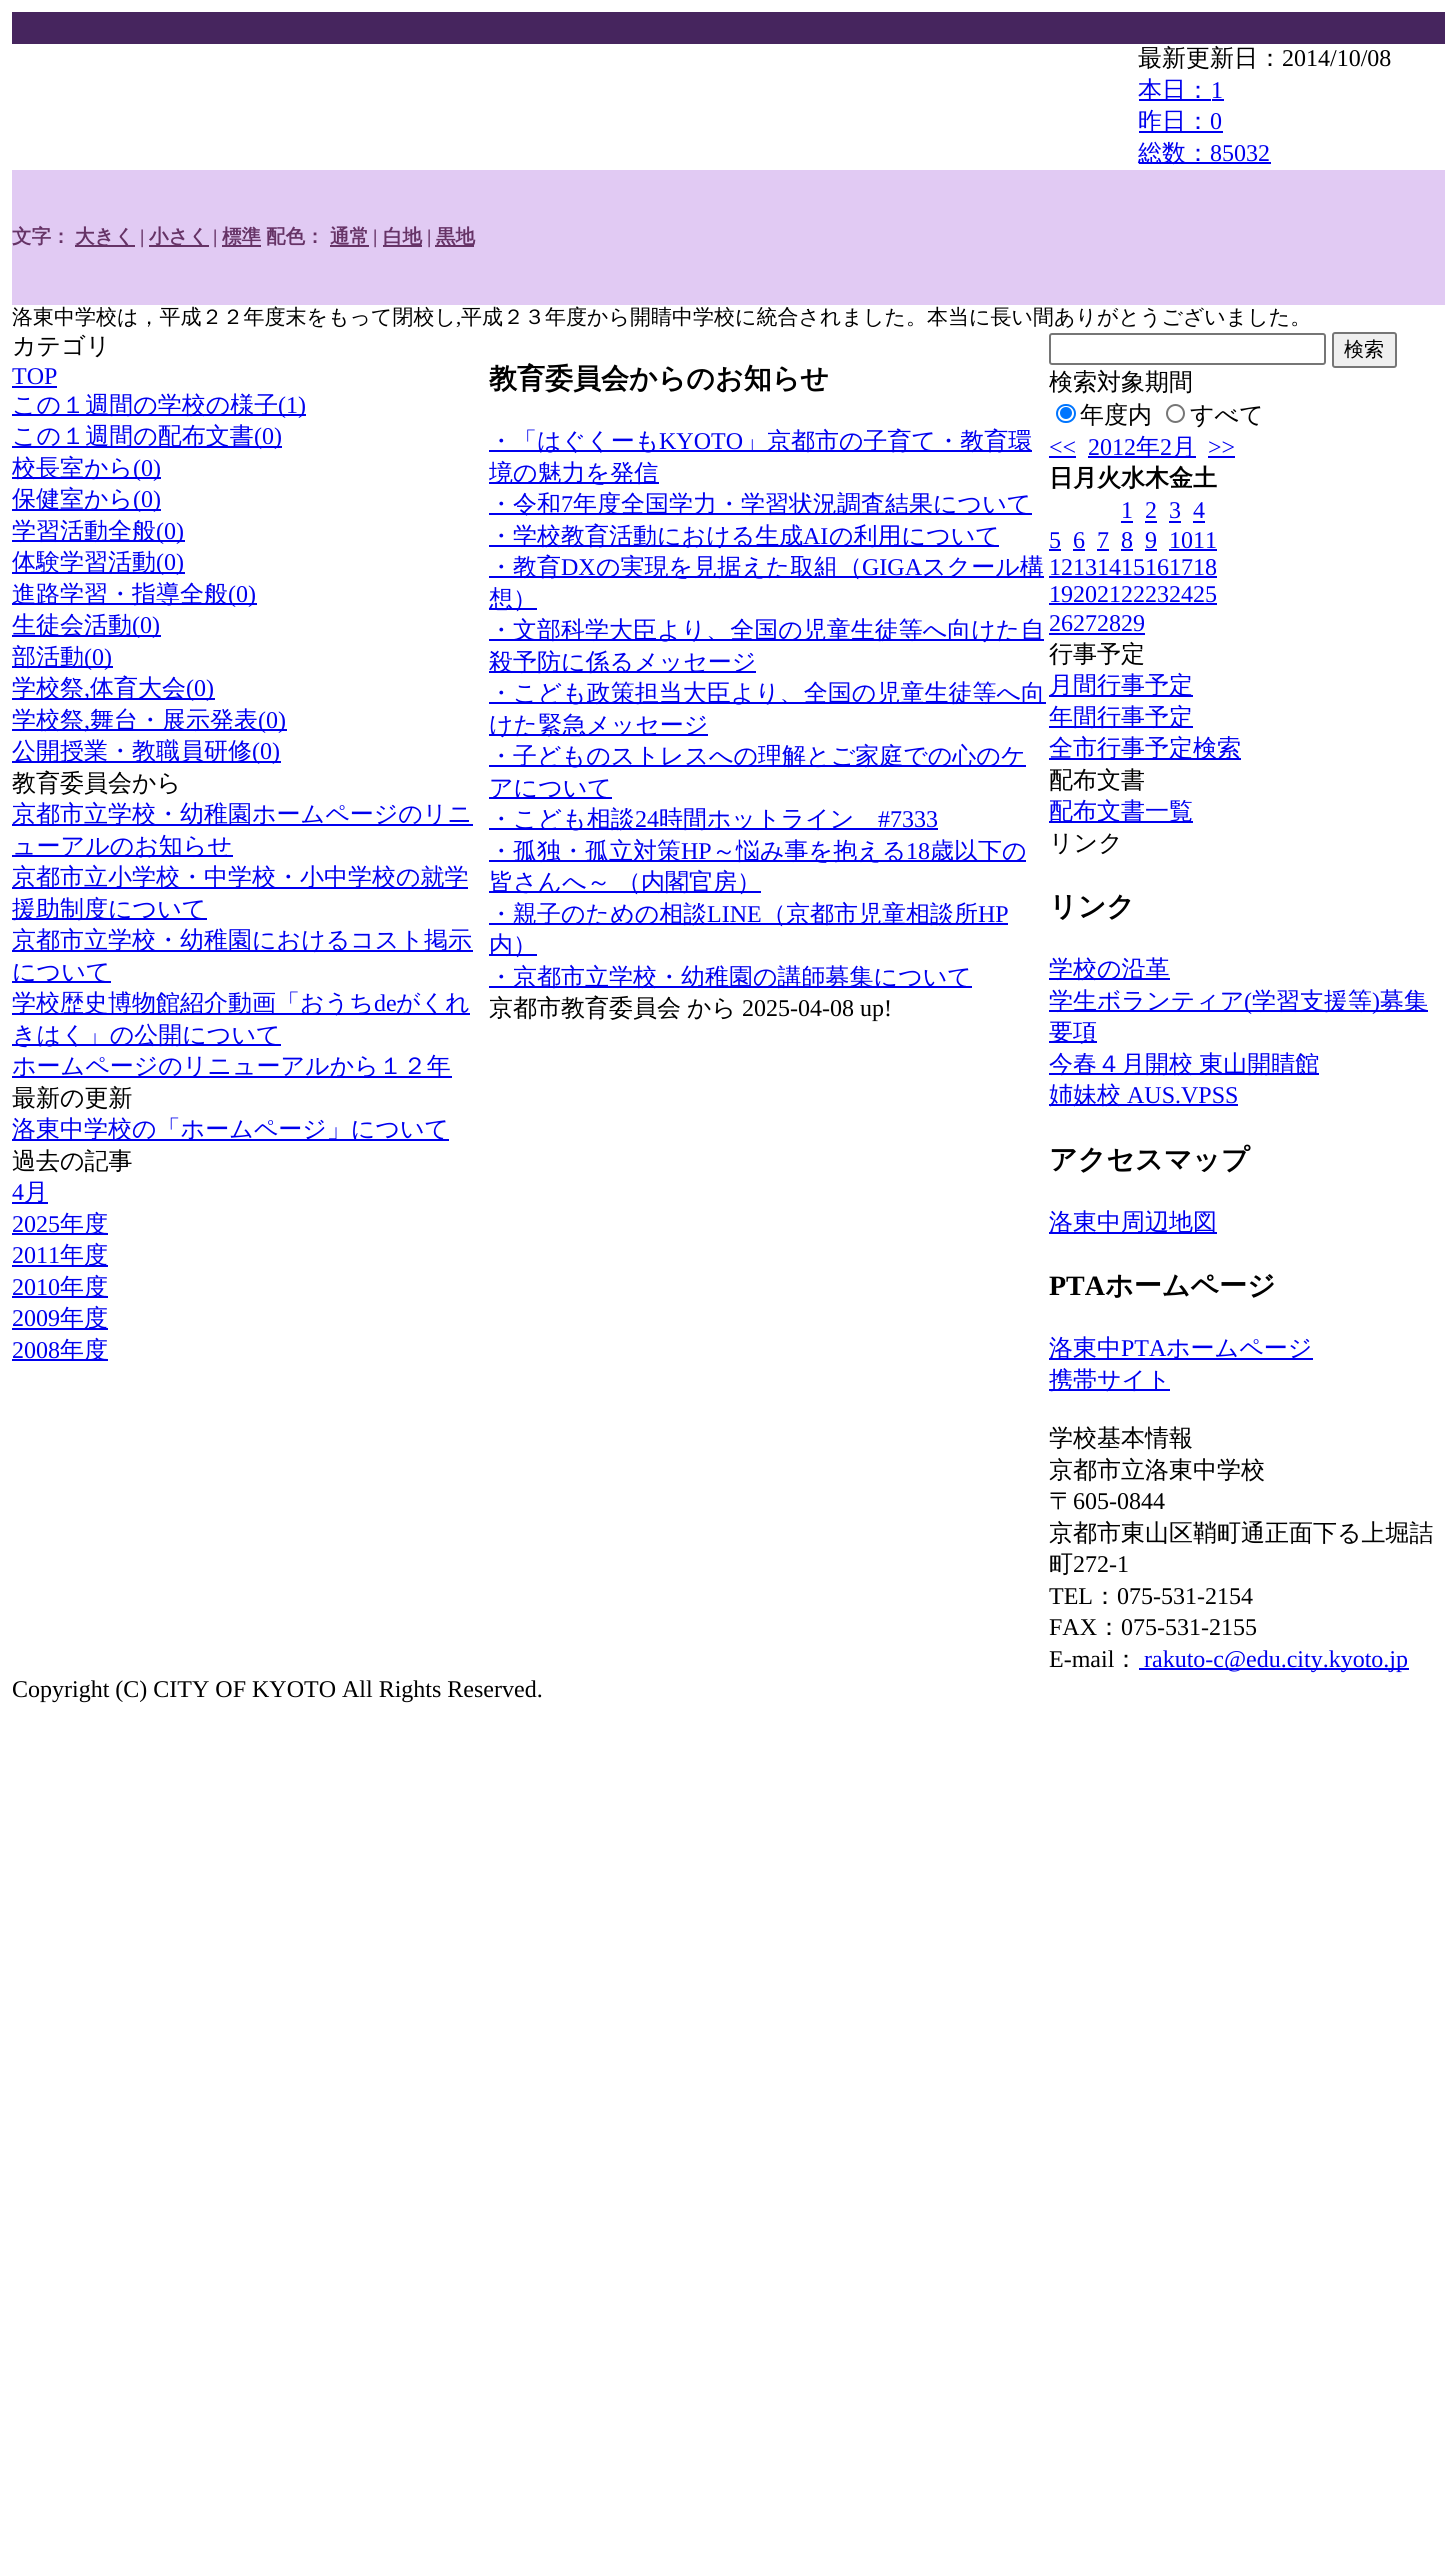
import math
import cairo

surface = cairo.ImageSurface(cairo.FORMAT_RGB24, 1456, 2564)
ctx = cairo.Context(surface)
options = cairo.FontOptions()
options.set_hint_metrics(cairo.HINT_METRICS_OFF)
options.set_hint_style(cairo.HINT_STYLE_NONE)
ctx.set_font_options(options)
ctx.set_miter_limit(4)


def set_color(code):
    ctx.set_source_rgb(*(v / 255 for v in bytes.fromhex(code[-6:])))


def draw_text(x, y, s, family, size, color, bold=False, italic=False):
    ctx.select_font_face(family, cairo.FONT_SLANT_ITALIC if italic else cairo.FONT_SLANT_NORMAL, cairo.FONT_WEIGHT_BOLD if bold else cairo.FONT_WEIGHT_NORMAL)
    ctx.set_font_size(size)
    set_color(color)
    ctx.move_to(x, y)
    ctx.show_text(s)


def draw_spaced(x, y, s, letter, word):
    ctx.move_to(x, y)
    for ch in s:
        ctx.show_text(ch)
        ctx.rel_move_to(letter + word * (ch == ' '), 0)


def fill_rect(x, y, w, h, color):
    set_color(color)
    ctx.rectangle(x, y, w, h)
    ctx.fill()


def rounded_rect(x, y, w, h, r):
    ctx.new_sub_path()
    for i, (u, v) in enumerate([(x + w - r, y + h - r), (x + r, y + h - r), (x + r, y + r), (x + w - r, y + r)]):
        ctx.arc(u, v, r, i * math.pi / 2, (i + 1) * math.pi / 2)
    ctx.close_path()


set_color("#ffffff")
ctx.paint()
fill_rect(12, 12, 1433, 32, "#46255e")
draw_text(1138, 66, "最新更新日：", "WenQuanYi Zen Hei Medium", 24, "#000000")
draw_text(1282, 66, "2014/10/08", "Liberation Serif", 24, "#000000")
fill_rect(1139, 99, 72, 2, "#0000ee")
draw_text(1138, 98, "本日：", "WenQuanYi Zen Hei Medium", 24, "#0000ee")
draw_text(1211, 98, "1", "Liberation Serif", 24, "#0000ee")
fill_rect(1212, 99, 12, 2, "#0000ee")
fill_rect(1139, 131, 84, 2, "#0000ee")
draw_text(1138, 129, "昨日：", "WenQuanYi Zen Hei Medium", 24, "#0000ee")
draw_text(1210, 129, "0", "Liberation Serif", 24, "#0000ee")
fill_rect(1139, 162, 132, 2, "#0000ee")
draw_text(1138, 161, "総数：", "WenQuanYi Zen Hei Medium", 24, "#0000ee")
draw_text(1210, 161, "85032", "Liberation Serif", 24, "#0000ee")
fill_rect(12, 170, 1433, 135, "#e1caf3")
draw_text(12, 243, "文字：", "WenQuanYi Zen Hei", 19.5, "#663366", bold=True)
fill_rect(75, 245, 60, 2, "#663366")
draw_text(75, 243, "大きく", "WenQuanYi Zen Hei", 19.5, "#663366", bold=True)
draw_text(140, 243, "|", "Liberation Serif", 19.5, "#663366", bold=True)
fill_rect(149, 245, 60, 2, "#663366")
draw_text(149, 243, "小さく", "WenQuanYi Zen Hei", 19.5, "#663366", bold=True)
draw_text(213, 243, "|", "Liberation Serif", 19.5, "#663366", bold=True)
fill_rect(222, 245, 39, 2, "#663366")
draw_text(222, 243, "標準", "WenQuanYi Zen Hei", 19.5, "#663366", bold=True)
draw_text(266, 243, "配色：", "WenQuanYi Zen Hei", 19.5, "#663366", bold=True)
fill_rect(330, 245, 39, 2, "#663366")
draw_text(330, 243, "通常", "WenQuanYi Zen Hei", 19.5, "#663366", bold=True)
draw_text(373, 243, "|", "Liberation Serif", 19.5, "#663366", bold=True)
fill_rect(383, 245, 39, 2, "#663366")
draw_text(383, 243, "白地", "WenQuanYi Zen Hei", 19.5, "#663366", bold=True)
draw_text(427, 243, "|", "Liberation Serif", 19.5, "#663366", bold=True)
fill_rect(435, 245, 39, 2, "#663366")
draw_text(436, 243, "黒地", "WenQuanYi Zen Hei", 19.5, "#663366", bold=True)
draw_text(12, 324, "洛東中学校は，平成２２年度末をもって閉校し", "WenQuanYi Zen Hei Medium", 21, "#000000")
draw_text(456, 324, ",", "Liberation Serif", 21, "#000000")
draw_text(461, 324, "平成２３年度から開睛中学校に統合されました。本当に長い間ありがとうございました。", "WenQuanYi Zen Hei Medium", 21, "#000000")
draw_text(12, 354, "カテゴリ", "WenQuanYi Zen Hei Medium", 24, "#000000")
draw_text(12, 384, "TOP", "Liberation Serif", 24, "#0000ee")
fill_rect(12, 386, 45, 2, "#0000ee")
fill_rect(12, 414, 294, 2, "#0000ee")
draw_text(12, 413, "この１週間の学校の様子", "WenQuanYi Zen Hei Medium", 24, "#0000ee")
draw_text(278, 413, "(1)", "Liberation Serif", 24, "#0000ee")
fill_rect(12, 446, 270, 2, "#0000ee")
draw_text(12, 444, "この１週間の配布文書", "WenQuanYi Zen Hei Medium", 24, "#0000ee")
draw_text(254, 444, "(0)", "Liberation Serif", 24, "#0000ee")
fill_rect(12, 477, 149, 2, "#0000ee")
draw_text(12, 476, "校長室から", "WenQuanYi Zen Hei Medium", 24, "#0000ee")
draw_text(133, 476, "(0)", "Liberation Serif", 24, "#0000ee")
fill_rect(12, 509, 149, 2, "#0000ee")
draw_text(12, 507, "保健室から", "WenQuanYi Zen Hei Medium", 24, "#0000ee")
draw_text(133, 507, "(0)", "Liberation Serif", 24, "#0000ee")
fill_rect(12, 540, 173, 2, "#0000ee")
draw_text(12, 539, "学習活動全般", "WenQuanYi Zen Hei Medium", 24, "#0000ee")
draw_text(156, 539, "(0)", "Liberation Serif", 24, "#0000ee")
fill_rect(12, 572, 173, 2, "#0000ee")
draw_text(12, 570, "体験学習活動", "WenQuanYi Zen Hei Medium", 24, "#0000ee")
draw_text(156, 570, "(0)", "Liberation Serif", 24, "#0000ee")
fill_rect(12, 603, 245, 2, "#0000ee")
draw_text(12, 602, "進路学習・指導全般", "WenQuanYi Zen Hei Medium", 24, "#0000ee")
draw_text(228, 602, "(0)", "Liberation Serif", 24, "#0000ee")
fill_rect(12, 635, 149, 2, "#0000ee")
draw_text(12, 633, "生徒会活動", "WenQuanYi Zen Hei Medium", 24, "#0000ee")
draw_text(132, 633, "(0)", "Liberation Serif", 24, "#0000ee")
fill_rect(12, 666, 101, 2, "#0000ee")
draw_text(12, 665, "部活動", "WenQuanYi Zen Hei Medium", 24, "#0000ee")
draw_text(84, 665, "(0)", "Liberation Serif", 24, "#0000ee")
fill_rect(12, 698, 203, 2, "#0000ee")
draw_text(12, 696, "学校祭", "WenQuanYi Zen Hei Medium", 24, "#0000ee")
draw_text(84, 696, ",", "Liberation Serif", 24, "#0000ee")
draw_text(90, 696, "体育大会", "WenQuanYi Zen Hei Medium", 24, "#0000ee")
draw_text(186, 696, "(0)", "Liberation Serif", 24, "#0000ee")
fill_rect(12, 729, 275, 2, "#0000ee")
draw_text(12, 728, "学校祭", "WenQuanYi Zen Hei Medium", 24, "#0000ee")
draw_text(84, 728, ",", "Liberation Serif", 24, "#0000ee")
draw_text(90, 728, "舞台・展示発表", "WenQuanYi Zen Hei Medium", 24, "#0000ee")
draw_text(258, 728, "(0)", "Liberation Serif", 24, "#0000ee")
fill_rect(12, 761, 269, 2, "#0000ee")
draw_text(12, 759, "公開授業・教職員研修", "WenQuanYi Zen Hei Medium", 24, "#0000ee")
draw_text(252, 759, "(0)", "Liberation Serif", 24, "#0000ee")
draw_text(12, 791, "教育委員会から", "WenQuanYi Zen Hei Medium", 24, "#000000")
fill_rect(12, 824, 461, 2, "#0000ee")
draw_text(12, 822, "京都市立学校・幼稚園ホームページのリニ", "WenQuanYi Zen Hei Medium", 24, "#0000ee")
fill_rect(12, 855, 221, 2, "#0000ee")
draw_text(12, 854, "ューアルのお知らせ", "WenQuanYi Zen Hei Medium", 24, "#0000ee")
fill_rect(12, 887, 456, 2, "#0000ee")
draw_text(12, 885, "京都市立小学校・中学校・小中学校の就学", "WenQuanYi Zen Hei Medium", 24, "#0000ee")
fill_rect(12, 918, 195, 2, "#0000ee")
draw_text(12, 917, "援助制度について", "WenQuanYi Zen Hei Medium", 24, "#0000ee")
fill_rect(12, 950, 461, 2, "#0000ee")
draw_text(12, 948, "京都市立学校・幼稚園におけるコスト掲示", "WenQuanYi Zen Hei Medium", 24, "#0000ee")
fill_rect(12, 981, 99, 2, "#0000ee")
draw_text(12, 980, "について", "WenQuanYi Zen Hei Medium", 24, "#0000ee")
fill_rect(12, 1013, 458, 2, "#0000ee")
draw_text(12, 1011, "学校歴史博物館紹介動画「おうち", "WenQuanYi Zen Hei Medium", 24, "#0000ee")
draw_text(374, 1011, "de", "Liberation Serif", 24, "#0000ee")
draw_text(396, 1011, "がくれ", "WenQuanYi Zen Hei Medium", 24, "#0000ee")
fill_rect(12, 1044, 269, 2, "#0000ee")
draw_text(12, 1043, "きはく」の公開について", "WenQuanYi Zen Hei Medium", 24, "#0000ee")
fill_rect(12, 1076, 440, 2, "#0000ee")
draw_text(12, 1074, "ホームページのリニューアルから１２年", "WenQuanYi Zen Hei Medium", 24, "#0000ee")
draw_text(12, 1106, "最新の更新", "WenQuanYi Zen Hei Medium", 24, "#000000")
fill_rect(12, 1139, 437, 2, "#0000ee")
draw_text(12, 1137, "洛東中学校の「ホームページ」について", "WenQuanYi Zen Hei Medium", 24, "#0000ee")
draw_text(12, 1169, "過去の記事", "WenQuanYi Zen Hei Medium", 24, "#000000")
draw_text(12, 1200, "4", "Liberation Serif", 24, "#0000ee")
fill_rect(12, 1202, 36, 2, "#0000ee")
draw_text(24, 1200, "月", "WenQuanYi Zen Hei Medium", 24, "#0000ee")
draw_text(12, 1232, "2025", "Liberation Serif", 24, "#0000ee")
fill_rect(12, 1233, 96, 2, "#0000ee")
draw_text(60, 1232, "年度", "WenQuanYi Zen Hei Medium", 24, "#0000ee")
draw_text(12, 1263, "2011", "Liberation Serif", 24, "#0000ee")
fill_rect(12, 1265, 96, 2, "#0000ee")
draw_text(60, 1263, "年度", "WenQuanYi Zen Hei Medium", 24, "#0000ee")
draw_text(12, 1295, "2010", "Liberation Serif", 24, "#0000ee")
fill_rect(12, 1296, 96, 2, "#0000ee")
draw_text(60, 1295, "年度", "WenQuanYi Zen Hei Medium", 24, "#0000ee")
draw_text(12, 1326, "2009", "Liberation Serif", 24, "#0000ee")
fill_rect(12, 1328, 96, 2, "#0000ee")
draw_text(60, 1326, "年度", "WenQuanYi Zen Hei Medium", 24, "#0000ee")
draw_text(12, 1358, "2008", "Liberation Serif", 24, "#0000ee")
fill_rect(12, 1359, 96, 2, "#0000ee")
draw_text(60, 1358, "年度", "WenQuanYi Zen Hei Medium", 24, "#0000ee")
draw_text(489, 388, "教育委員会からのお知らせ", "WenQuanYi Zen Hei", 28, "#000000", bold=True)
fill_rect(489, 450, 543, 2, "#0000ee")
draw_text(489, 449, "・「はぐくーも", "WenQuanYi Zen Hei Medium", 24, "#0000ee")
draw_text(659, 449, "KYOTO", "Liberation Serif", 24, "#0000ee")
draw_text(743, 449, "」京都市の子育て・教育環", "WenQuanYi Zen Hei Medium", 24, "#0000ee")
fill_rect(489, 482, 170, 2, "#0000ee")
draw_text(489, 481, "境の魅力を発信", "WenQuanYi Zen Hei Medium", 24, "#0000ee")
fill_rect(489, 513, 543, 2, "#0000ee")
draw_text(489, 512, "・令和", "WenQuanYi Zen Hei Medium", 24, "#0000ee")
draw_text(561, 512, "7", "Liberation Serif", 24, "#0000ee")
draw_text(573, 512, "年度全国学力・学習状況調査結果について", "WenQuanYi Zen Hei Medium", 24, "#0000ee")
fill_rect(489, 545, 510, 2, "#0000ee")
draw_text(489, 544, "・学校教育活動における生成", "WenQuanYi Zen Hei Medium", 24, "#0000ee")
draw_text(803, 544, "AI", "Liberation Serif", 24, "#0000ee")
draw_text(829, 544, "の利用について", "WenQuanYi Zen Hei Medium", 24, "#0000ee")
fill_rect(489, 576, 555, 2, "#0000ee")
draw_text(489, 575, "・教育", "WenQuanYi Zen Hei Medium", 24, "#0000ee")
draw_text(561, 575, "DX", "Liberation Serif", 24, "#0000ee")
draw_text(596, 575, "の実現を見据えた取組（", "WenQuanYi Zen Hei Medium", 24, "#0000ee")
draw_text(862, 575, "GIGA", "Liberation Serif", 24, "#0000ee")
draw_text(922, 575, "スクール構", "WenQuanYi Zen Hei Medium", 24, "#0000ee")
fill_rect(489, 608, 48, 2, "#0000ee")
draw_text(489, 607, "想）", "WenQuanYi Zen Hei Medium", 24, "#0000ee")
fill_rect(489, 639, 555, 2, "#0000ee")
draw_text(489, 638, "・文部科学大臣より、全国の児童生徒等へ向けた自", "WenQuanYi Zen Hei Medium", 24, "#0000ee")
fill_rect(489, 671, 267, 2, "#0000ee")
draw_text(489, 670, "殺予防に係るメッセージ", "WenQuanYi Zen Hei Medium", 24, "#0000ee")
fill_rect(489, 702, 557, 2, "#0000ee")
draw_text(489, 701, "・こども政策担当大臣より、全国の児童生徒等へ向", "WenQuanYi Zen Hei Medium", 24, "#0000ee")
fill_rect(489, 734, 219, 2, "#0000ee")
draw_text(489, 733, "けた緊急メッセージ", "WenQuanYi Zen Hei Medium", 24, "#0000ee")
fill_rect(489, 765, 537, 2, "#0000ee")
draw_text(489, 764, "・子どものストレスへの理解とご家庭での心のケ", "WenQuanYi Zen Hei Medium", 24, "#0000ee")
fill_rect(489, 797, 123, 2, "#0000ee")
draw_text(489, 796, "アについて", "WenQuanYi Zen Hei Medium", 24, "#0000ee")
fill_rect(489, 828, 449, 2, "#0000ee")
draw_text(489, 827, "・こども相談", "WenQuanYi Zen Hei Medium", 24, "#0000ee")
draw_text(635, 827, "24", "Liberation Serif", 24, "#0000ee")
draw_text(659, 827, "時間ホットライン", "WenQuanYi Zen Hei Medium", 24, "#0000ee")
draw_text(878, 827, "#7333", "Liberation Serif", 24, "#0000ee")
fill_rect(489, 860, 537, 2, "#0000ee")
draw_text(489, 859, "・孤独・孤立対策", "WenQuanYi Zen Hei Medium", 24, "#0000ee")
draw_text(681, 859, "HP", "Liberation Serif", 24, "#0000ee")
draw_text(712, 859, "～悩み事を抱える", "WenQuanYi Zen Hei Medium", 24, "#0000ee")
draw_text(906, 859, "18", "Liberation Serif", 24, "#0000ee")
draw_text(930, 859, "歳以下の", "WenQuanYi Zen Hei Medium", 24, "#0000ee")
fill_rect(489, 891, 272, 2, "#0000ee")
draw_spaced(489, 890, "皆さんへ～ （内閣官房）", 0, -1)
fill_rect(489, 923, 519, 2, "#0000ee")
draw_text(489, 922, "・親子のための相談", "WenQuanYi Zen Hei Medium", 24, "#0000ee")
draw_text(707, 922, "LINE", "Liberation Serif", 24, "#0000ee")
draw_text(762, 922, "（京都市児童相談所", "WenQuanYi Zen Hei Medium", 24, "#0000ee")
draw_text(978, 922, "HP", "Liberation Serif", 24, "#0000ee")
fill_rect(489, 954, 48, 2, "#0000ee")
draw_text(489, 953, "内）", "WenQuanYi Zen Hei Medium", 24, "#0000ee")
fill_rect(489, 986, 483, 2, "#0000ee")
draw_text(489, 985, "・京都市立学校・幼稚園の講師募集について", "WenQuanYi Zen Hei Medium", 24, "#0000ee")
draw_text(489, 1016, "京都市教育委員会", "WenQuanYi Zen Hei Medium", 24, "#000000")
draw_text(687, 1016, "から", "WenQuanYi Zen Hei Medium", 24, "#000000")
draw_text(742, 1016, "2025-04-08 up!", "Liberation Serif", 24, "#000000")
rounded_rect(1050, 334, 275, 30, 2)
set_color("#767676")
ctx.stroke()
set_color("#efefef")
rounded_rect(1333, 333, 63, 34, 2)
ctx.fill_preserve()
set_color("#767676")
ctx.stroke()
draw_text(1344, 356, "検索", "WenQuanYi Zen Hei Medium", 20, "#000000")
draw_text(1049, 390, "検索対象期間", "WenQuanYi Zen Hei Medium", 24, "#000000")
rounded_rect(1057, 405, 18, 17, 8.5)
set_color("#0075ff")
ctx.stroke()
ctx.arc(1066, 413, 6, 0, 2 * math.pi)
ctx.fill()
draw_text(1080, 423, "年度内", "WenQuanYi Zen Hei Medium", 24, "#000000")
ctx.new_path()
ctx.arc(1175.5, 413.5, 8.5, 0, 2 * math.pi)
set_color("#767676")
ctx.stroke()
draw_text(1190, 423, "すべて", "WenQuanYi Zen Hei Medium", 24, "#000000")
draw_text(1049, 455, "<<", "Liberation Serif", 24, "#0000ee")
fill_rect(1049, 456, 27, 2, "#0000ee")
draw_text(1088, 455, "2012", "Liberation Serif", 24, "#0000ee")
fill_rect(1088, 456, 108, 2, "#0000ee")
draw_text(1136, 455, "年", "WenQuanYi Zen Hei Medium", 24, "#0000ee")
draw_text(1160, 455, "2", "Liberation Serif", 24, "#0000ee")
draw_text(1172, 455, "月", "WenQuanYi Zen Hei Medium", 24, "#0000ee")
draw_text(1208, 455, ">>", "Liberation Serif", 24, "#0000ee")
fill_rect(1208, 456, 27, 2, "#0000ee")
draw_text(1049, 486, "日月火水木金土", "WenQuanYi Zen Hei", 24, "#000000", bold=True)
draw_text(1121, 518, "1", "Liberation Serif", 24, "#0000ee")
fill_rect(1121, 521, 12, 2, "#0000ee")
draw_text(1145, 518, "2", "Liberation Serif", 24, "#0000ee")
fill_rect(1145, 521, 12, 2, "#0000ee")
draw_text(1169, 518, "3", "Liberation Serif", 24, "#0000ee")
fill_rect(1169, 521, 12, 2, "#0000ee")
draw_text(1193, 518, "4", "Liberation Serif", 24, "#0000ee")
fill_rect(1193, 521, 12, 2, "#0000ee")
draw_text(1049, 548, "5", "Liberation Serif", 24, "#0000ee")
fill_rect(1049, 549, 12, 2, "#0000ee")
draw_text(1073, 548, "6", "Liberation Serif", 24, "#0000ee")
fill_rect(1073, 549, 12, 2, "#0000ee")
draw_text(1097, 548, "7", "Liberation Serif", 24, "#0000ee")
fill_rect(1097, 549, 12, 2, "#0000ee")
draw_text(1121, 548, "8", "Liberation Serif", 24, "#0000ee")
fill_rect(1121, 549, 12, 2, "#0000ee")
draw_text(1145, 548, "9", "Liberation Serif", 24, "#0000ee")
fill_rect(1145, 549, 12, 2, "#0000ee")
draw_text(1169, 548, "1011", "Liberation Serif", 24, "#0000ee")
fill_rect(1169, 549, 48, 2, "#0000ee")
draw_text(1049, 575, "12131415161718", "Liberation Serif", 24, "#0000ee")
fill_rect(1049, 576, 168, 2, "#0000ee")
draw_text(1049, 602, "19202122232425", "Liberation Serif", 24, "#0000ee")
fill_rect(1049, 603, 168, 2, "#0000ee")
draw_text(1049, 631, "26272829", "Liberation Serif", 24, "#0000ee")
fill_rect(1049, 633, 96, 2, "#0000ee")
draw_text(1049, 662, "行事予定", "WenQuanYi Zen Hei Medium", 24, "#000000")
fill_rect(1049, 695, 144, 2, "#0000ee")
draw_text(1049, 693, "月間行事予定", "WenQuanYi Zen Hei Medium", 24, "#0000ee")
fill_rect(1049, 726, 144, 2, "#0000ee")
draw_text(1049, 725, "年間行事予定", "WenQuanYi Zen Hei Medium", 24, "#0000ee")
fill_rect(1049, 758, 192, 2, "#0000ee")
draw_text(1049, 756, "全市行事予定検索", "WenQuanYi Zen Hei Medium", 24, "#0000ee")
draw_text(1049, 788, "配布文書", "WenQuanYi Zen Hei Medium", 24, "#000000")
fill_rect(1049, 821, 144, 2, "#0000ee")
draw_text(1049, 819, "配布文書一覧", "WenQuanYi Zen Hei Medium", 24, "#0000ee")
draw_text(1049, 851, "リンク", "WenQuanYi Zen Hei Medium", 24, "#000000")
draw_text(1049, 916, "リンク", "WenQuanYi Zen Hei", 28, "#000000", bold=True)
fill_rect(1049, 978, 121, 2, "#0000ee")
draw_text(1049, 977, "学校の沿革", "WenQuanYi Zen Hei Medium", 24, "#0000ee")
fill_rect(1049, 1010, 379, 2, "#0000ee")
draw_text(1049, 1009, "学生ボランティア", "WenQuanYi Zen Hei Medium", 24, "#0000ee")
draw_text(1244, 1009, "(", "Liberation Serif", 24, "#0000ee")
draw_text(1252, 1009, "学習支援等", "WenQuanYi Zen Hei Medium", 24, "#0000ee")
draw_text(1372, 1009, ")", "Liberation Serif", 24, "#0000ee")
draw_text(1380, 1009, "募集", "WenQuanYi Zen Hei Medium", 24, "#0000ee")
fill_rect(1049, 1041, 48, 2, "#0000ee")
draw_text(1049, 1040, "要項", "WenQuanYi Zen Hei Medium", 24, "#0000ee")
fill_rect(1049, 1073, 270, 2, "#0000ee")
draw_spaced(1049, 1072, "今春４月開校 東山開睛館", 0, -1)
fill_rect(1049, 1104, 189, 2, "#0000ee")
draw_text(1049, 1103, "姉妹校", "WenQuanYi Zen Hei Medium", 24, "#0000ee")
draw_text(1127, 1103, "AUS.VPSS", "Liberation Serif", 24, "#0000ee")
draw_text(1049, 1169, "アクセスマップ", "WenQuanYi Zen Hei", 28, "#000000", bold=True)
fill_rect(1049, 1232, 168, 2, "#0000ee")
draw_text(1049, 1230, "洛東中周辺地図", "WenQuanYi Zen Hei Medium", 24, "#0000ee")
draw_text(1049, 1295, "PTA", "Liberation Serif", 28, "#000000", bold=True)
draw_text(1105, 1295, "ホームページ", "WenQuanYi Zen Hei", 28, "#000000", bold=True)
fill_rect(1049, 1358, 264, 2, "#0000ee")
draw_text(1049, 1356, "洛東中", "WenQuanYi Zen Hei Medium", 24, "#0000ee")
draw_text(1121, 1356, "PTA", "Liberation Serif", 24, "#0000ee")
draw_text(1166, 1356, "ホームページ", "WenQuanYi Zen Hei Medium", 24, "#0000ee")
fill_rect(1049, 1389, 121, 2, "#0000ee")
draw_text(1049, 1388, "携帯サイト", "WenQuanYi Zen Hei Medium", 24, "#0000ee")
draw_text(1049, 1446, "学校基本情報", "WenQuanYi Zen Hei Medium", 24, "#000000")
draw_text(1049, 1478, "京都市立洛東中学校", "WenQuanYi Zen Hei Medium", 24, "#000000")
draw_text(1049, 1509, "〒", "WenQuanYi Zen Hei Medium", 24, "#000000")
draw_text(1073, 1509, "605-0844", "Liberation Serif", 24, "#000000")
draw_text(1049, 1541, "京都市東山区鞘町通正面下る上堀詰", "WenQuanYi Zen Hei Medium", 24, "#000000")
draw_text(1049, 1572, "町", "WenQuanYi Zen Hei Medium", 24, "#000000")
draw_text(1073, 1572, "272-1", "Liberation Serif", 24, "#000000")
draw_text(1049, 1604, "TEL", "Liberation Serif", 24, "#000000")
draw_text(1093, 1604, "：", "WenQuanYi Zen Hei Medium", 24, "#000000")
draw_text(1117, 1604, "075-531-2154", "Liberation Serif", 24, "#000000")
draw_text(1049, 1635, "FAX", "Liberation Serif", 24, "#000000")
draw_text(1097, 1635, "：", "WenQuanYi Zen Hei Medium", 24, "#000000")
draw_text(1121, 1635, "075-531-2155", "Liberation Serif", 24, "#000000")
draw_text(1049, 1667, "E-mail", "Liberation Serif", 24, "#000000")
draw_text(1114, 1667, "：", "WenQuanYi Zen Hei Medium", 24, "#000000")
fill_rect(1139, 1668, 270, 2, "#0000ee")
draw_text(1144, 1667, "rakuto-c@edu.city.kyoto.jp", "Liberation Serif", 24, "#0000ee")
draw_text(12, 1697, "Copyright (C) CITY OF KYOTO All Rights Reserved.", "Liberation Serif", 24, "#000000")
surface.write_to_png("output.png")
